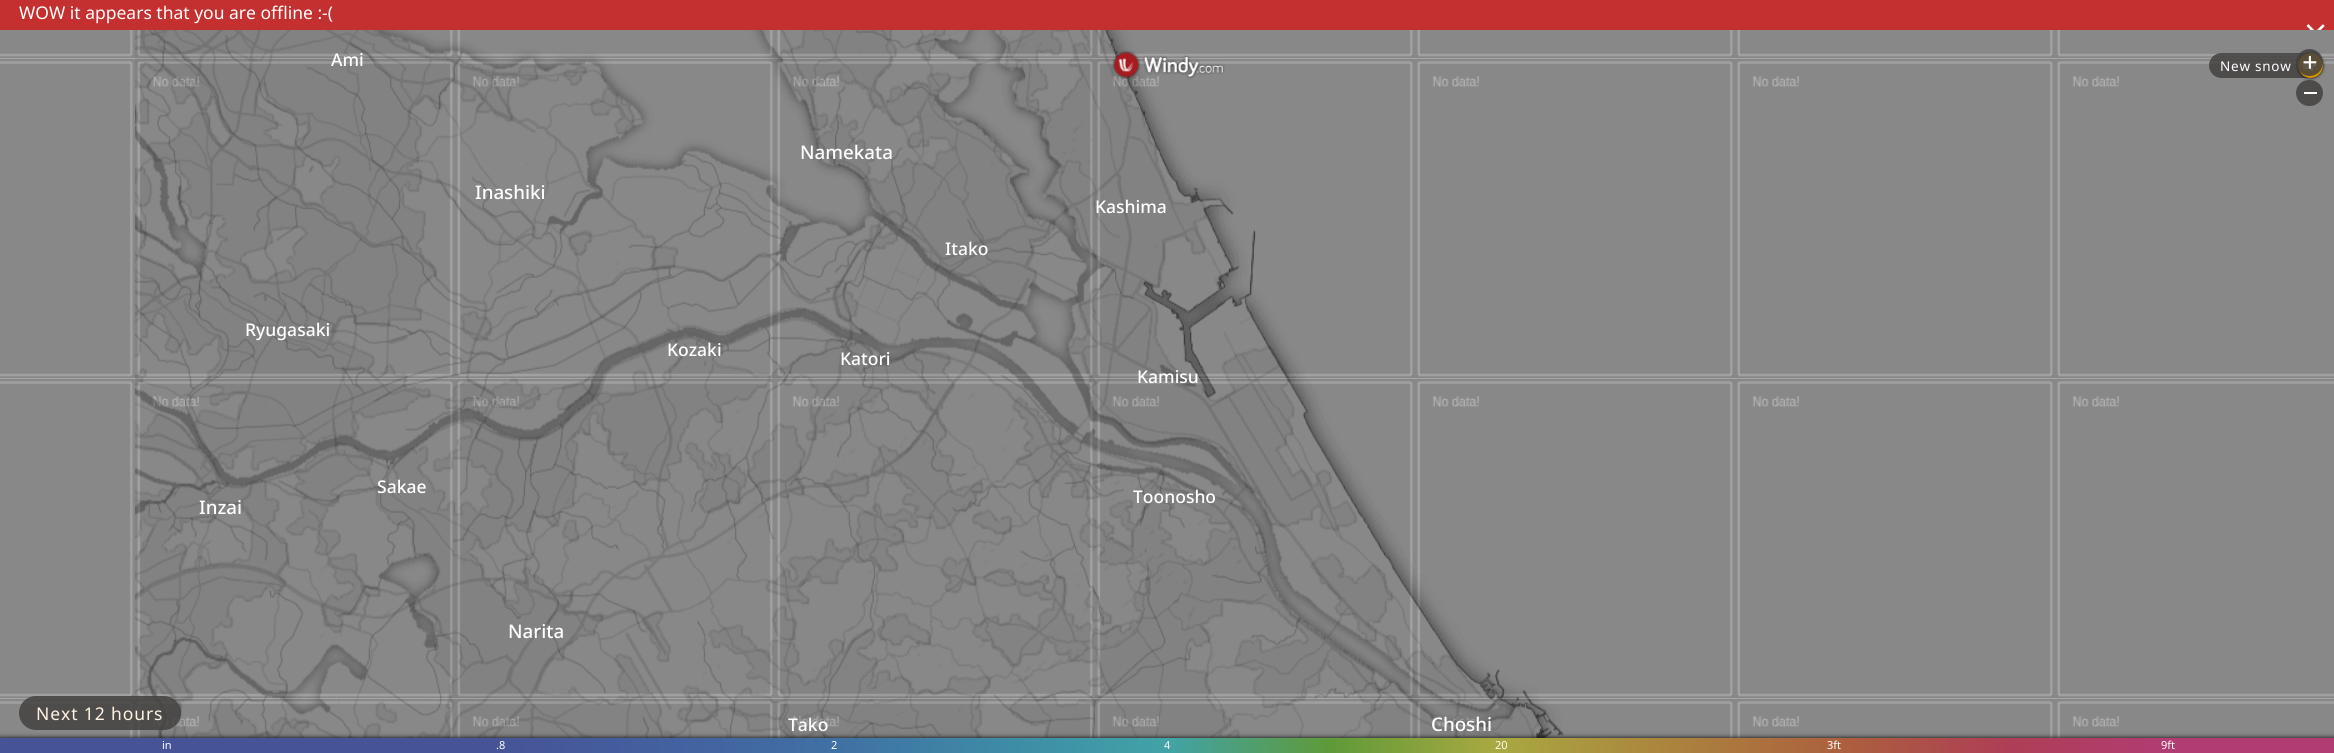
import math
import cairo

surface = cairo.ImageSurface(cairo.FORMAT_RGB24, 2334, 753)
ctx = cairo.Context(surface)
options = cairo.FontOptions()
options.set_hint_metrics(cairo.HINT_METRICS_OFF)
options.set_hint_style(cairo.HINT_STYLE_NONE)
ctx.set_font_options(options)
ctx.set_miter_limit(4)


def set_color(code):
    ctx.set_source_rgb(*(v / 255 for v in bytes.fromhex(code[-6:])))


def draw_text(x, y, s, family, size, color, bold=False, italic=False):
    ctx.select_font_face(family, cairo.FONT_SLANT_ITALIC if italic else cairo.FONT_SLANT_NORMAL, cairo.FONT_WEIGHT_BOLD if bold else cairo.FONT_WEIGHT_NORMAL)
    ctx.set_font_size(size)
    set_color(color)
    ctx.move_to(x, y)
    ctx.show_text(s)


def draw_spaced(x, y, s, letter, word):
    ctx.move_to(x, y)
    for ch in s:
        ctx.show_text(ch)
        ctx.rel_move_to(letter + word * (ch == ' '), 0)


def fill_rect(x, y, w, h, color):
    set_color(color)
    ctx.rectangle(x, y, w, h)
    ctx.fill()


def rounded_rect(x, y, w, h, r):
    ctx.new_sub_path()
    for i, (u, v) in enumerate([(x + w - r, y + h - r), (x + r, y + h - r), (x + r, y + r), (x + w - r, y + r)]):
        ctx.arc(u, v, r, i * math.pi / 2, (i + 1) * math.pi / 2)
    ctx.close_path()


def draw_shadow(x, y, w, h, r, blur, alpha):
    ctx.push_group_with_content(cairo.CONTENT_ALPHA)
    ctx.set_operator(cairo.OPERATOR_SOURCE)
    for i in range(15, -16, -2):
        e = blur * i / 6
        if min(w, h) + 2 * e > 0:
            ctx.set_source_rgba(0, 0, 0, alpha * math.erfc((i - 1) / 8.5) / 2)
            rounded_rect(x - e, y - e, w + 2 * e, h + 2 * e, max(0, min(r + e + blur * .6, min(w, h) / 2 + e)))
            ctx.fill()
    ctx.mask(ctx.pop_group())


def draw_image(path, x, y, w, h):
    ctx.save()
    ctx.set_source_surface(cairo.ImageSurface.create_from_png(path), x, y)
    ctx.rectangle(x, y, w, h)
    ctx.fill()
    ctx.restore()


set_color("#ffffff")
ctx.paint()
fill_rect(0, 0, 2334, 30, "#c42f2f")
draw_text(19, 19, "WOW it appears that you are offline :-(", "Noto Sans", 17.5, "#ffffff")
draw_image("assets/img1.png", 2306, 24, 19, 6)
draw_image("assets/img8.png", 1095, 30, 320, 29)
draw_image("assets/img13.png", 1095, 59, 320, 320)
draw_image("assets/img27.png", 1095, 58, 211, 321)
draw_image("assets/img23.png", 1095, 30, 41, 29)
draw_image("assets/img2.png", 1112, 50, 29, 29)
draw_image("assets/img3.png", 1142, 55, 83, 24)
draw_image("assets/img9.png", 2055, 30, 279, 29)
draw_image("assets/img14.png", 2055, 59, 279, 320)
ctx.set_source_rgba(0.267, 0.255, 0.255, 0.84)
rounded_rect(2209, 53, 114, 25, 12.5)
ctx.fill()
set_color("#000000")
draw_shadow(2298, 53, 25, 25, 12.5, 1.5, 1)
set_color("#d49500")
ctx.arc(2310.5, 65.5, 12.5, 0, 2 * math.pi)
ctx.fill()
draw_image("assets/img38.png", 2302, 61, 15, 10)
ctx.set_source_rgba(0.267, 0.255, 0.255, 0.84)
ctx.arc(2309.5, 62.5, 13.5, 0, 2 * math.pi)
ctx.fill()
draw_image("assets/img4.png", 2303, 55, 14, 14)
rounded_rect(2296, 80, 27, 26, 13)
ctx.fill()
fill_rect(2304, 92, 13, 2, "#ffffff")
draw_image("assets/img5.png", 0, 30, 135, 29)
draw_image("assets/img6.png", 135, 30, 320, 29)
draw_image("assets/img7.png", 455, 30, 320, 29)
draw_image("assets/img6.png", 775, 30, 320, 29)
draw_image("assets/img8.png", 1415, 30, 320, 29)
draw_image("assets/img8.png", 1735, 30, 320, 29)
draw_image("assets/img10.png", 0, 59, 135, 320)
draw_image("assets/img11.png", 135, 59, 320, 320)
draw_image("assets/img12.png", 455, 59, 320, 320)
draw_image("assets/img11.png", 775, 59, 320, 320)
draw_image("assets/img13.png", 1415, 59, 320, 320)
draw_image("assets/img13.png", 1735, 59, 320, 320)
draw_image("assets/img10.png", 0, 379, 135, 320)
draw_image("assets/img11.png", 135, 379, 320, 320)
draw_image("assets/img12.png", 455, 379, 320, 320)
draw_image("assets/img11.png", 775, 379, 320, 320)
draw_image("assets/img13.png", 1095, 379, 320, 320)
draw_image("assets/img13.png", 1415, 379, 320, 320)
draw_image("assets/img13.png", 1735, 379, 320, 320)
draw_image("assets/img14.png", 2055, 379, 279, 320)
draw_image("assets/img15.png", 0, 699, 135, 39)
draw_image("assets/img16.png", 135, 699, 320, 39)
draw_image("assets/img17.png", 455, 699, 320, 39)
draw_image("assets/img16.png", 775, 699, 320, 39)
draw_image("assets/img18.png", 1095, 699, 320, 39)
draw_image("assets/img18.png", 1415, 699, 320, 39)
draw_image("assets/img18.png", 1735, 699, 320, 39)
draw_image("assets/img19.png", 2055, 699, 279, 39)
draw_image("assets/img24.png", 135, 58, 320, 321)
draw_image("assets/img20.png", 135, 30, 320, 29)
draw_image("assets/img25.png", 455, 58, 320, 321)
draw_image("assets/img21.png", 455, 30, 320, 29)
draw_image("assets/img26.png", 775, 58, 320, 321)
draw_image("assets/img22.png", 775, 30, 320, 29)
draw_image("assets/img28.png", 135, 378, 320, 321)
draw_image("assets/img29.png", 455, 378, 320, 321)
draw_image("assets/img30.png", 775, 378, 320, 321)
draw_image("assets/img31.png", 1095, 378, 320, 321)
draw_image("assets/img32.png", 1415, 574, 124, 125)
draw_image("assets/img33.png", 135, 699, 320, 39)
draw_image("assets/img34.png", 455, 699, 320, 39)
draw_image("assets/img35.png", 775, 699, 320, 39)
draw_image("assets/img36.png", 1095, 699, 320, 39)
draw_image("assets/img37.png", 1415, 699, 149, 39)
draw_text(331, 66, "Ami", "Noto Sans Medium", 17.5, "#ffffff")
draw_text(245, 336, "Ryugasaki", "Noto Sans Medium", 17.5, "#ffffff")
draw_text(475, 199, "Inashiki", "Noto Sans Medium", 18.75, "#ffffff")
draw_text(667, 356, "Kozaki", "Noto Sans Medium", 17.5, "#ffffff")
draw_text(800, 159, "Namekata", "Noto Sans Medium", 18.75, "#ffffff")
draw_text(945, 255, "Itako", "Noto Sans Medium", 17.5, "#ffffff")
draw_text(840, 365, "Katori", "Noto Sans Medium", 17.5, "#ffffff")
draw_text(1095, 213, "Kashima", "Noto Sans Medium", 17.5, "#ffffff")
draw_text(1137, 383, "Kamisu", "Noto Sans Medium", 17.5, "#ffffff")
draw_text(377, 493, "Sakae", "Noto Sans Medium", 17.5, "#ffffff")
draw_text(199, 514, "Inzai", "Noto Sans Medium", 18.75, "#ffffff")
draw_text(1133, 503, "Toonosho", "Noto Sans Medium", 17.5, "#ffffff")
draw_text(508, 638, "Narita", "Noto Sans Medium", 18.75, "#ffffff")
draw_text(788, 731, "Tako", "Noto Sans Medium", 17.5, "#ffffff")
draw_text(1431, 731, "Choshi", "Noto Sans Medium", 18.75, "#ffffff")
ctx.select_font_face("Noto Sans")
ctx.set_font_size(13.5)
draw_spaced(2220, 71, "New snow", 0.75, 0)
set_color("#000000")
draw_shadow(0, 738, 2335, 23, 0, 2.5, 1)
ctx.set_source_rgba(0.267, 0.255, 0.255, 0.84)
rounded_rect(19, 696, 162, 34, 17)
ctx.fill()
ctx.set_font_size(17.5)
set_color("#fff3e1")
draw_spaced(36, 720, "Next 12 hours", 0.9, 0)
gradient = cairo.LinearGradient(0, 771, 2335, 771)
gradient.add_color_stop_rgba(0, 0.275, 0.325, 0.592, 1)
gradient.add_color_stop_rgba(0.21, 0.275, 0.325, 0.592, 1)
gradient.add_color_stop_rgba(0.29, 0.263, 0.38, 0.627, 1)
gradient.add_color_stop_rgba(0.36, 0.251, 0.443, 0.643, 1)
gradient.add_color_stop_rgba(0.43, 0.243, 0.545, 0.651, 1)
gradient.add_color_stop_rgba(0.5, 0.255, 0.639, 0.655, 1)
gradient.add_color_stop_rgba(0.57, 0.373, 0.604, 0.22, 1)
gradient.add_color_stop_rgba(0.64, 0.659, 0.663, 0.255, 1)
gradient.add_color_stop_rgba(0.71, 0.671, 0.525, 0.243, 1)
gradient.add_color_stop_rgba(0.79, 0.675, 0.373, 0.243, 1)
gradient.add_color_stop_rgba(0.86, 0.682, 0.243, 0.337, 1)
gradient.add_color_stop_rgba(0.93, 0.694, 0.235, 0.455, 1)
gradient.add_color_stop_rgba(1, 0.694, 0.235, 0.455, 1)
ctx.set_source(gradient)
ctx.rectangle(0, 738, 2334, 15)
ctx.fill()
draw_text(162, 749, "in", "Noto Sans", 11, "#ffffff")
draw_text(496, 749, ".8", "Noto Sans", 11, "#ffffff")
draw_text(831, 749, "2", "Noto Sans", 11, "#ffffff")
draw_text(1164, 749, "4", "Noto Sans", 11, "#ffffff")
draw_text(1495, 749, "20", "Noto Sans", 11, "#ffffff")
draw_text(1827, 749, "3ft", "Noto Sans", 11, "#ffffff")
draw_text(2161, 749, "9ft", "Noto Sans", 11, "#ffffff")
surface.write_to_png("output.png")
